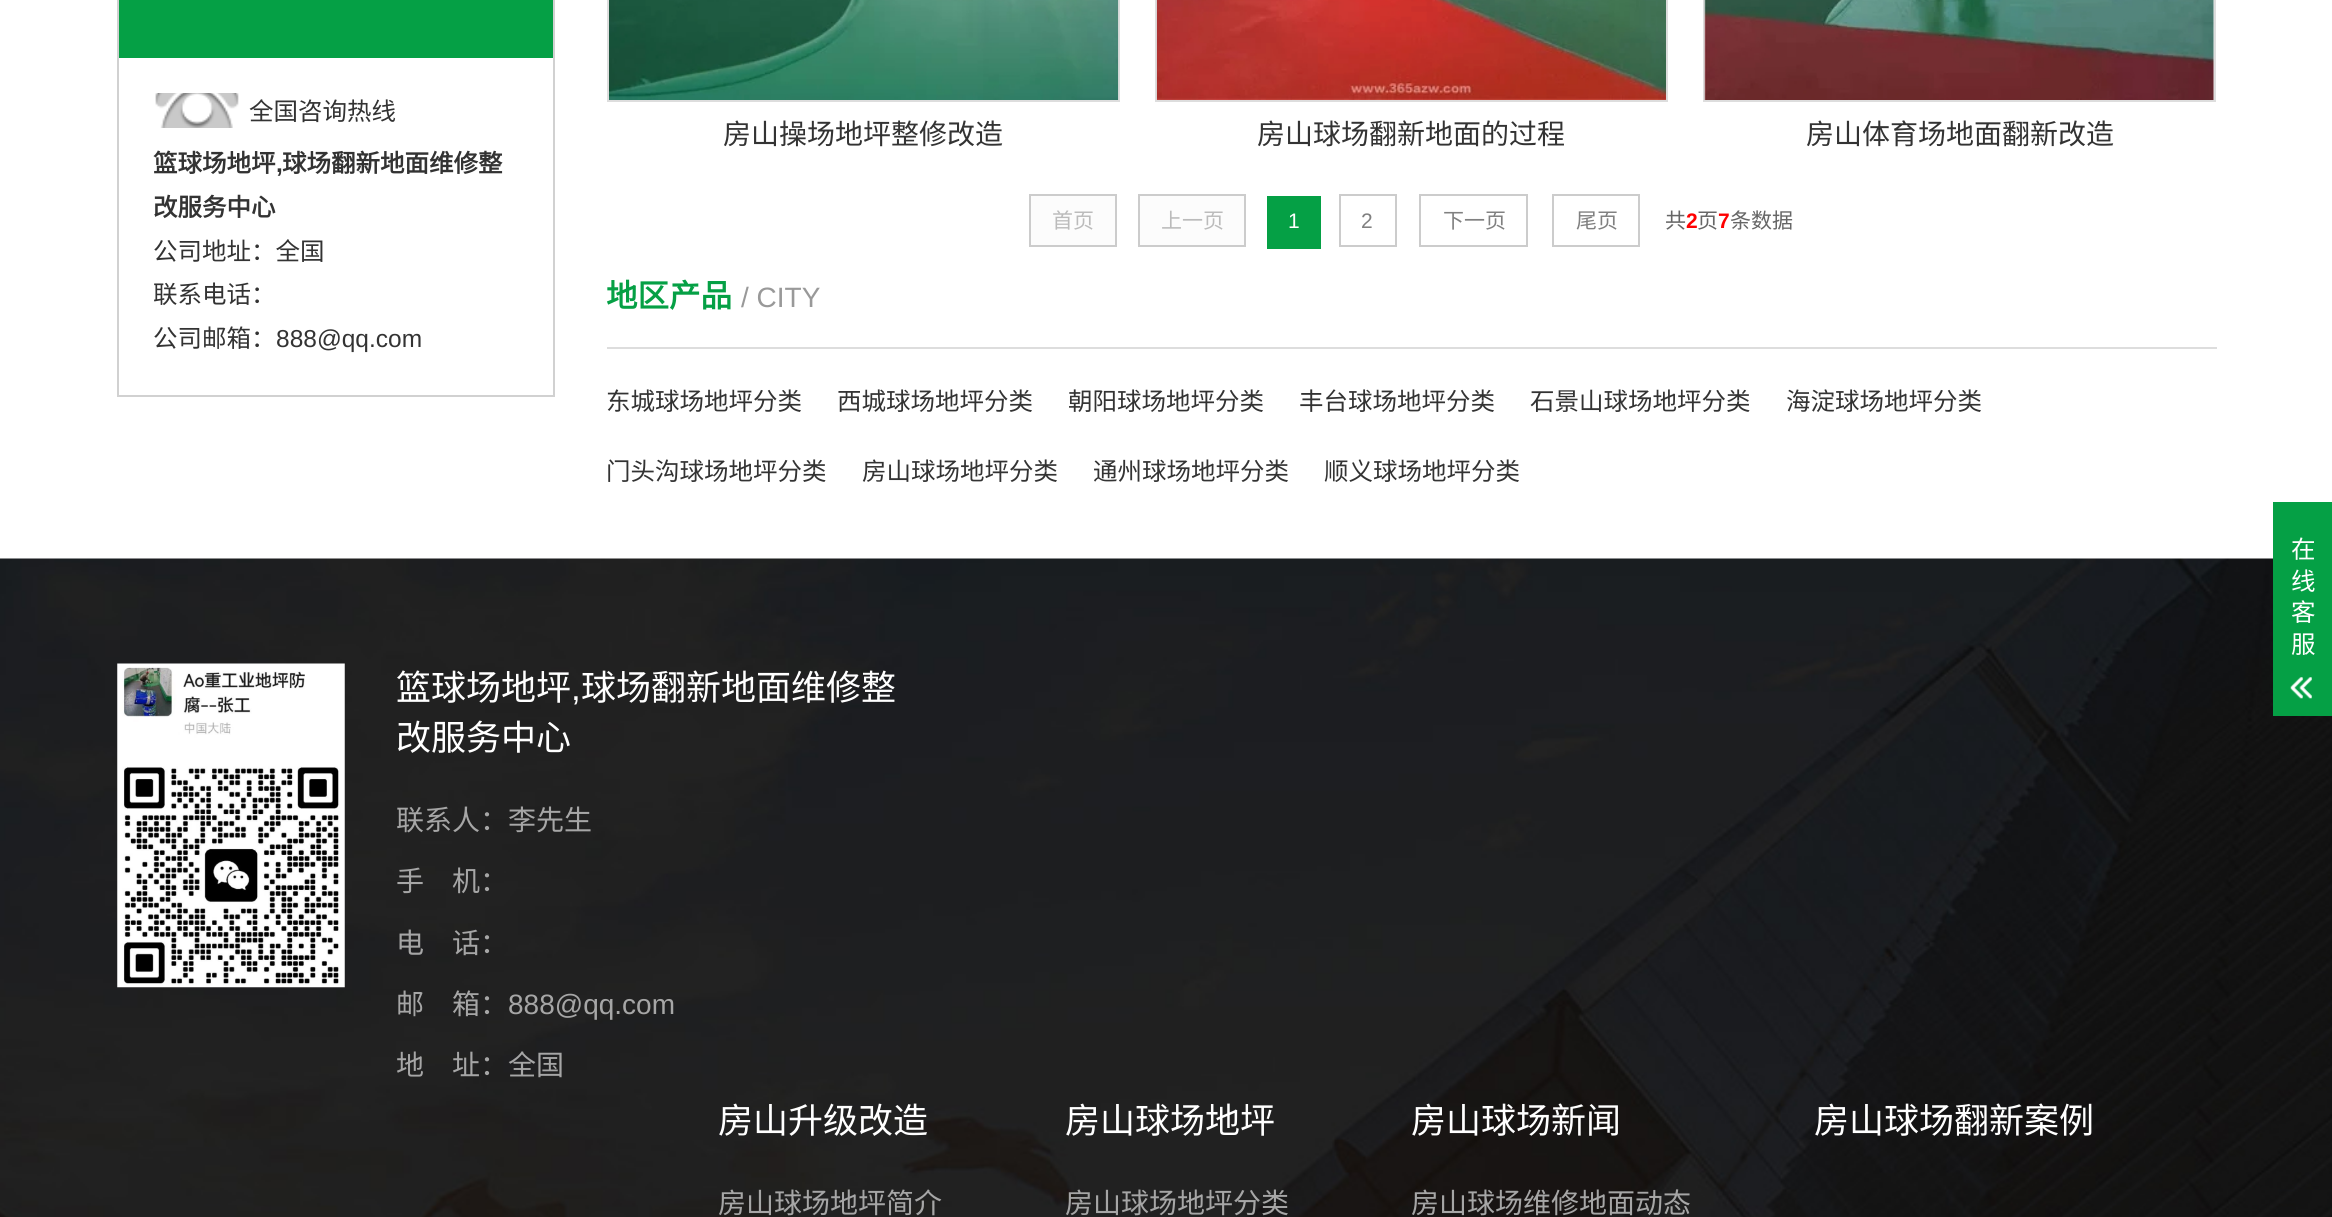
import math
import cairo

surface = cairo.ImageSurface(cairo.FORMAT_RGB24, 2332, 1217)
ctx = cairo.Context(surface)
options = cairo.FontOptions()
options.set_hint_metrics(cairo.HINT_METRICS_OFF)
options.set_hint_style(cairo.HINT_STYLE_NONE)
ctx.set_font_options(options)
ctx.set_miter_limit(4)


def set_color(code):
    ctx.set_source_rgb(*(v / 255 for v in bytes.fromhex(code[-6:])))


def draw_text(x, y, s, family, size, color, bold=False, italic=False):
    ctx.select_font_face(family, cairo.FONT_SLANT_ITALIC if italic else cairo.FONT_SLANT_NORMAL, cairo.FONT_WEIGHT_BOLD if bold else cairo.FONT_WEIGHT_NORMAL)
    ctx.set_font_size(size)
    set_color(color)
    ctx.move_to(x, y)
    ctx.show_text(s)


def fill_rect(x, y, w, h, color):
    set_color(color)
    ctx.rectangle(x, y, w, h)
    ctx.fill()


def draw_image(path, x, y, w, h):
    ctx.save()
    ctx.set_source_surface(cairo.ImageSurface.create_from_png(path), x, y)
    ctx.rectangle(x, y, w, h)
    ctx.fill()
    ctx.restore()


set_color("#ffffff")
ctx.paint()
ctx.rectangle(118, -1, 436, 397)
set_color("#d1d1d1")
ctx.stroke()
fill_rect(119, 0, 434, 58, "#05a045")
draw_image("assets/img1.png", 155, 93, 84, 35)
draw_text(249, 120, "全国咨询热线", "Noto Sans CJK SC", 24.5, "#333333")
draw_text(153, 172, "篮球场地坪", "Noto Sans CJK SC", 24.5, "#333333", bold=True)
draw_text(276, 172, ",", "Liberation Sans", 24.5, "#333333", bold=True)
draw_text(282, 172, "球场翻新地面维修整", "Noto Sans CJK SC", 24.5, "#333333", bold=True)
draw_text(153, 216, "改服务中心", "Noto Sans CJK SC", 24.5, "#333333", bold=True)
draw_text(153, 260, "公司地址：全国", "Noto Sans CJK SC", 24.5, "#333333")
draw_text(153, 303, "联系电话：", "Noto Sans CJK SC", 24.5, "#333333")
draw_text(153, 347, "公司邮箱：", "Noto Sans CJK SC", 24.5, "#333333")
draw_text(276, 347, "888@qq.com", "Liberation Sans", 24.5, "#333333")
ctx.rectangle(608, -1, 511, 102)
set_color("#dddddd")
ctx.stroke()
draw_image("assets/img2.png", 609, 0, 510, 100)
draw_text(723, 144, "房山操场地坪整修改造", "Noto Sans CJK SC", 28, "#333333")
ctx.rectangle(1156, -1, 511, 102)
set_color("#dddddd")
ctx.stroke()
draw_image("assets/img3.png", 1156, 0, 510, 100)
draw_text(1257, 144, "房山球场翻新地面的过程", "Noto Sans CJK SC", 28, "#333333")
ctx.rectangle(1704, -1, 511, 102)
set_color("#dddddd")
ctx.stroke()
draw_image("assets/img4.png", 1704, 0, 510, 100)
draw_text(1806, 144, "房山体育场地面翻新改造", "Noto Sans CJK SC", 28, "#333333")
set_color("#fcfcfc")
ctx.rectangle(1030, 195, 86, 51)
ctx.fill_preserve()
set_color("#cccccc")
ctx.stroke()
draw_text(1052, 228, "首页", "Noto Sans CJK SC", 21, "#bbbbbb")
set_color("#fcfcfc")
ctx.rectangle(1139, 195, 106, 51)
ctx.fill_preserve()
set_color("#cccccc")
ctx.stroke()
draw_text(1161, 228, "上一页", "Noto Sans CJK SC", 21, "#bbbbbb")
fill_rect(1267, 196, 54, 53, "#05a045")
draw_text(1288, 228, "1", "Liberation Sans", 21, "#ffffff")
ctx.rectangle(1340, 195, 56, 51)
set_color("#cccccc")
ctx.stroke()
draw_text(1361, 228, "2", "Liberation Sans", 21, "#808080")
ctx.rectangle(1420, 195, 107, 51)
set_color("#cccccc")
ctx.stroke()
draw_text(1443, 228, "下一页", "Noto Sans CJK SC", 21, "#808080")
ctx.rectangle(1553, 195, 86, 51)
set_color("#cccccc")
ctx.stroke()
draw_text(1576, 228, "尾页", "Noto Sans CJK SC", 21, "#808080")
draw_text(1665, 228, "共", "Noto Sans CJK SC", 21, "#666666")
draw_text(1686, 228, "2", "Liberation Sans", 21, "#ff0000", bold=True)
draw_text(1697, 228, "页", "Noto Sans CJK SC", 21, "#666666")
draw_text(1718, 228, "7", "Liberation Sans", 21, "#ff0000", bold=True)
draw_text(1730, 228, "条数据", "Noto Sans CJK SC", 21, "#666666")
fill_rect(607, 347, 1610, 2, "#dddddd")
draw_text(606, 307, "地区产品", "Noto Sans CJK SC", 31.5, "#05a045", bold=True)
draw_text(741, 307, "/ CITY", "Liberation Sans", 28, "#999999")
draw_text(606, 410, "东城球场地坪分类", "Noto Sans CJK SC", 24.5, "#333333")
draw_text(837, 410, "西城球场地坪分类", "Noto Sans CJK SC", 24.5, "#333333")
draw_text(1068, 410, "朝阳球场地坪分类", "Noto Sans CJK SC", 24.5, "#333333")
draw_text(1299, 410, "丰台球场地坪分类", "Noto Sans CJK SC", 24.5, "#333333")
draw_text(1530, 410, "石景山球场地坪分类", "Noto Sans CJK SC", 24.5, "#333333")
draw_text(1786, 410, "海淀球场地坪分类", "Noto Sans CJK SC", 24.5, "#333333")
draw_text(606, 480, "门头沟球场地坪分类", "Noto Sans CJK SC", 24.5, "#333333")
draw_text(862, 480, "房山球场地坪分类", "Noto Sans CJK SC", 24.5, "#333333")
draw_text(1093, 480, "通州球场地坪分类", "Noto Sans CJK SC", 24.5, "#333333")
draw_text(1324, 480, "顺义球场地坪分类", "Noto Sans CJK SC", 24.5, "#333333")
draw_image("assets/img6.png", 0, 558, 2332, 659)
fill_rect(2273, 502, 59, 214, "#05a045")
draw_text(2291, 558, "在", "Noto Sans CJK SC", 24.5, "#ffffff")
draw_text(2291, 590, "线", "Noto Sans CJK SC", 24.5, "#ffffff")
draw_text(2291, 621, "客", "Noto Sans CJK SC", 24.5, "#ffffff")
draw_text(2291, 653, "服", "Noto Sans CJK SC", 24.5, "#ffffff")
draw_image("assets/img5.png", 2290, 677, 22, 22)
draw_image("assets/img7.png", 117, 663, 228, 325)
draw_text(396, 700, "篮球场地坪", "Noto Sans CJK SC", 35, "#ffffff")
draw_text(571, 700, ",", "Liberation Sans", 35, "#ffffff")
draw_text(581, 700, "球场翻新地面维修整", "Noto Sans CJK SC", 35, "#ffffff")
draw_text(396, 750, "改服务中心", "Noto Sans CJK SC", 35, "#ffffff")
draw_text(396, 830, "联系人：李先生", "Noto Sans CJK SC", 28, "#a6a6a6")
draw_text(396, 891, "手　机：", "Noto Sans CJK SC", 28, "#a6a6a6")
draw_text(396, 953, "电　话：", "Noto Sans CJK SC", 28, "#a6a6a6")
draw_text(396, 1014, "邮　箱：", "Noto Sans CJK SC", 28, "#a6a6a6")
draw_text(508, 1014, "888@qq.com", "Liberation Sans", 28, "#a6a6a6")
draw_text(396, 1075, "地　址：全国", "Noto Sans CJK SC", 28, "#a6a6a6")
draw_text(718, 1133, "房山升级改造", "Noto Sans CJK SC", 35, "#ffffff")
draw_text(718, 1213, "房山球场地坪简介", "Noto Sans CJK SC", 28, "#a6a6a6")
draw_text(1065, 1133, "房山球场地坪", "Noto Sans CJK SC", 35, "#ffffff")
draw_text(1065, 1213, "房山球场地坪分类", "Noto Sans CJK SC", 28, "#a6a6a6")
draw_text(1411, 1133, "房山球场新闻", "Noto Sans CJK SC", 35, "#ffffff")
draw_text(1411, 1213, "房山球场维修地面动态", "Noto Sans CJK SC", 28, "#a6a6a6")
draw_text(1814, 1133, "房山球场翻新案例", "Noto Sans CJK SC", 35, "#ffffff")
surface.write_to_png("output.png")
